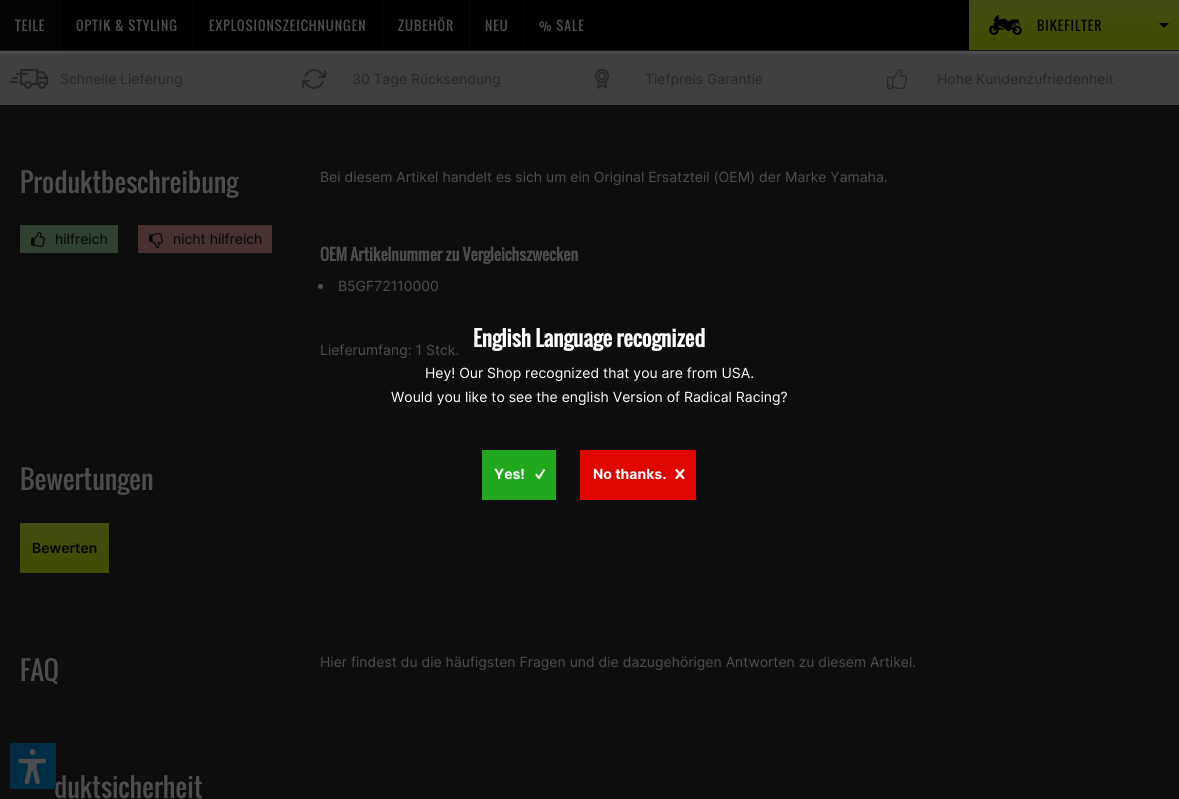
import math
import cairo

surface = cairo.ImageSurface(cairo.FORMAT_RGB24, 1179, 799)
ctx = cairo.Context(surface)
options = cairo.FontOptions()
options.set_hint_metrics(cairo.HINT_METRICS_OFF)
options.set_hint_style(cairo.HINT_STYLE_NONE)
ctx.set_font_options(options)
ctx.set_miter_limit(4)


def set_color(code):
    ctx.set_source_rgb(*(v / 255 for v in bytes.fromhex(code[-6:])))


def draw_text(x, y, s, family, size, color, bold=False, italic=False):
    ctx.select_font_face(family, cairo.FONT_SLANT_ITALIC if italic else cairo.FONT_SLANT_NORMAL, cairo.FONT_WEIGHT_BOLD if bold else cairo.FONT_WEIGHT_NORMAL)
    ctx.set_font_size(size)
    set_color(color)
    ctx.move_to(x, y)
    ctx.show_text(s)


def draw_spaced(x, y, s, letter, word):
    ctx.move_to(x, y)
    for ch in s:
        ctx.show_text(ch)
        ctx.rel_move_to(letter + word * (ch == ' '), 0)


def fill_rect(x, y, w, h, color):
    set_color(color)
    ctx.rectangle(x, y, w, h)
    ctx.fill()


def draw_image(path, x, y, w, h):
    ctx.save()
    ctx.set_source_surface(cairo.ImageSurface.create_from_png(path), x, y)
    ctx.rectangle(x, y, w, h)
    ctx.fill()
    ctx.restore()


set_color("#0d0d0d")
ctx.paint()
fill_rect(61, 0, 908, 50, "#000000")
fill_rect(0, 50, 1179, 1, "#181818")
fill_rect(60, 0, 1, 50, "#080808")
fill_rect(0, 0, 60, 50, "#050505")
ctx.select_font_face("Oswald")
ctx.set_font_size(13)
set_color("#4d4d4d")
draw_spaced(15, 31, "TEILE", 1, 0)
fill_rect(193, 0, 1, 50, "#080808")
set_color("#4d4d4d")
draw_spaced(76, 31, "OPTIK & STYLING", 1, 0)
fill_rect(382, 0, 1, 50, "#080808")
set_color("#4d4d4d")
draw_spaced(209, 31, "EXPLOSIONSZEICHNUNGEN", 1, 0)
fill_rect(469, 0, 1, 50, "#080808")
set_color("#4d4d4d")
draw_spaced(398, 31, "ZUBEHÖR", 1, 0)
fill_rect(523, 0, 1, 50, "#080808")
set_color("#4d4d4d")
draw_spaced(485, 31, "NEU", 1, 0)
draw_spaced(539, 31, "% SALE", 1, 0)
gradient = cairo.LinearGradient(1074, 0, 1074, 50)
gradient.add_color_stop_rgba(0, 0.255, 0.302, 0.071, 1)
gradient.add_color_stop_rgba(1, 0.243, 0.302, 0, 1)
ctx.set_source(gradient)
ctx.rectangle(969, 0, 210, 50)
ctx.fill()
draw_image("assets/img1.png", 989, 15, 33, 20)
set_color("#050505")
draw_spaced(1037, 31, "BIKEFILTER", 1, 0)
set_color("#000000")
ctx.new_path()
ctx.move_to(1164, 28)
ctx.line_to(1159, 23)
ctx.line_to(1169, 23)
ctx.close_path()
ctx.fill()
fill_rect(0, 51, 1179, 3, "#4d4d4d")
fill_rect(0, 54, 1179, 51, "#3f3f3f")
draw_image("assets/img2.png", 10, 69, 38, 20)
draw_text(60, 84, "Schnelle Lieferung", "Inter", 14, "#262626")
draw_image("assets/img3.png", 302, 69, 24, 20)
draw_text(352, 84, "30 Tage Rücksendung", "Inter", 14, "#262626")
draw_image("assets/img4.png", 595, 69, 14, 20)
draw_text(645, 84, "Tiefpreis Garantie", "Inter", 14, "#262626")
draw_image("assets/img5.png", 887, 69, 20, 20)
draw_text(937, 84, "Hohe Kundenzufriedenheit", "Inter", 14, "#262626")
draw_text(20, 193, "Produktbeschreibung", "Oswald", 26, "#4d4d4d")
fill_rect(20, 225, 98, 28, "#314131")
draw_image("assets/img6.png", 31, 232, 14, 15)
draw_text(55, 244, "hilfreich", "Inter", 14, "#050505")
fill_rect(138, 225, 134, 28, "#473231")
draw_image("assets/img7.png", 149, 233, 14, 15)
draw_text(173, 244, "nicht hilfreich", "Inter", 14, "#050505")
draw_text(320, 182, "Bei diesem Artikel handelt es sich um ein Original Ersatzteil (OEM) der Marke Yamaha.", "Inter", 14, "#4d4d4d")
draw_text(320, 261, "OEM Artikelnummer zu Vergleichszwecken", "Oswald", 15.75, "#4d4d4d", bold=True)
ctx.new_path()
ctx.arc(320.5, 286.5, 2.5, 0, 2 * math.pi)
ctx.fill()
draw_text(338, 291, "B5GF72110000", "Inter", 14, "#4d4d4d")
draw_text(320, 355, "Lieferumfang: 1 Stck.", "Inter", 14, "#4d4d4d")
draw_text(20, 490, "Bewertungen", "Oswald", 26, "#4d4d4d")
gradient = cairo.LinearGradient(65, 523, 65, 573)
gradient.add_color_stop_rgba(0, 0.255, 0.302, 0.071, 1)
gradient.add_color_stop_rgba(1, 0.243, 0.302, 0, 1)
ctx.set_source(gradient)
ctx.rectangle(20, 523, 89, 50)
ctx.fill()
draw_text(32, 553, "Bewerten", "Inter SemiBold", 14, "#050505")
draw_text(20, 681, "FAQ", "Oswald", 26, "#4d4d4d")
draw_text(320, 667, "Hier findest du die häufigsten Fragen und die dazugehörigen Antworten zu diesem Artikel.", "Inter", 14, "#4d4d4d")
draw_text(54, 798, "duktsicherheit", "Oswald", 26, "#4d4d4d")
draw_text(473, 347, "English Language recognized", "Oswald", 21, "#ffffff", bold=True)
draw_text(425, 378, "Hey! Our Shop recognized that you are from USA.", "Inter", 14, "#ffffff")
draw_text(391, 402, "Would you like to see the english Version of Radical Racing?", "Inter", 14, "#ffffff")
fill_rect(482, 450, 74, 50, "#21a81e")
draw_text(494, 479, "Yes!", "Inter", 14, "#ffffff", bold=True)
draw_image("assets/img8.png", 535, 469, 10, 11)
fill_rect(580, 450, 116, 50, "#e10500")
draw_text(593, 479, "No thanks.", "Inter", 14, "#ffffff", bold=True)
draw_image("assets/img9.png", 675, 469, 10, 11)
fill_rect(10, 743, 46, 46, "#002d43")
draw_image("assets/img10.png", 18, 749, 28, 35)
surface.write_to_png("output.png")
